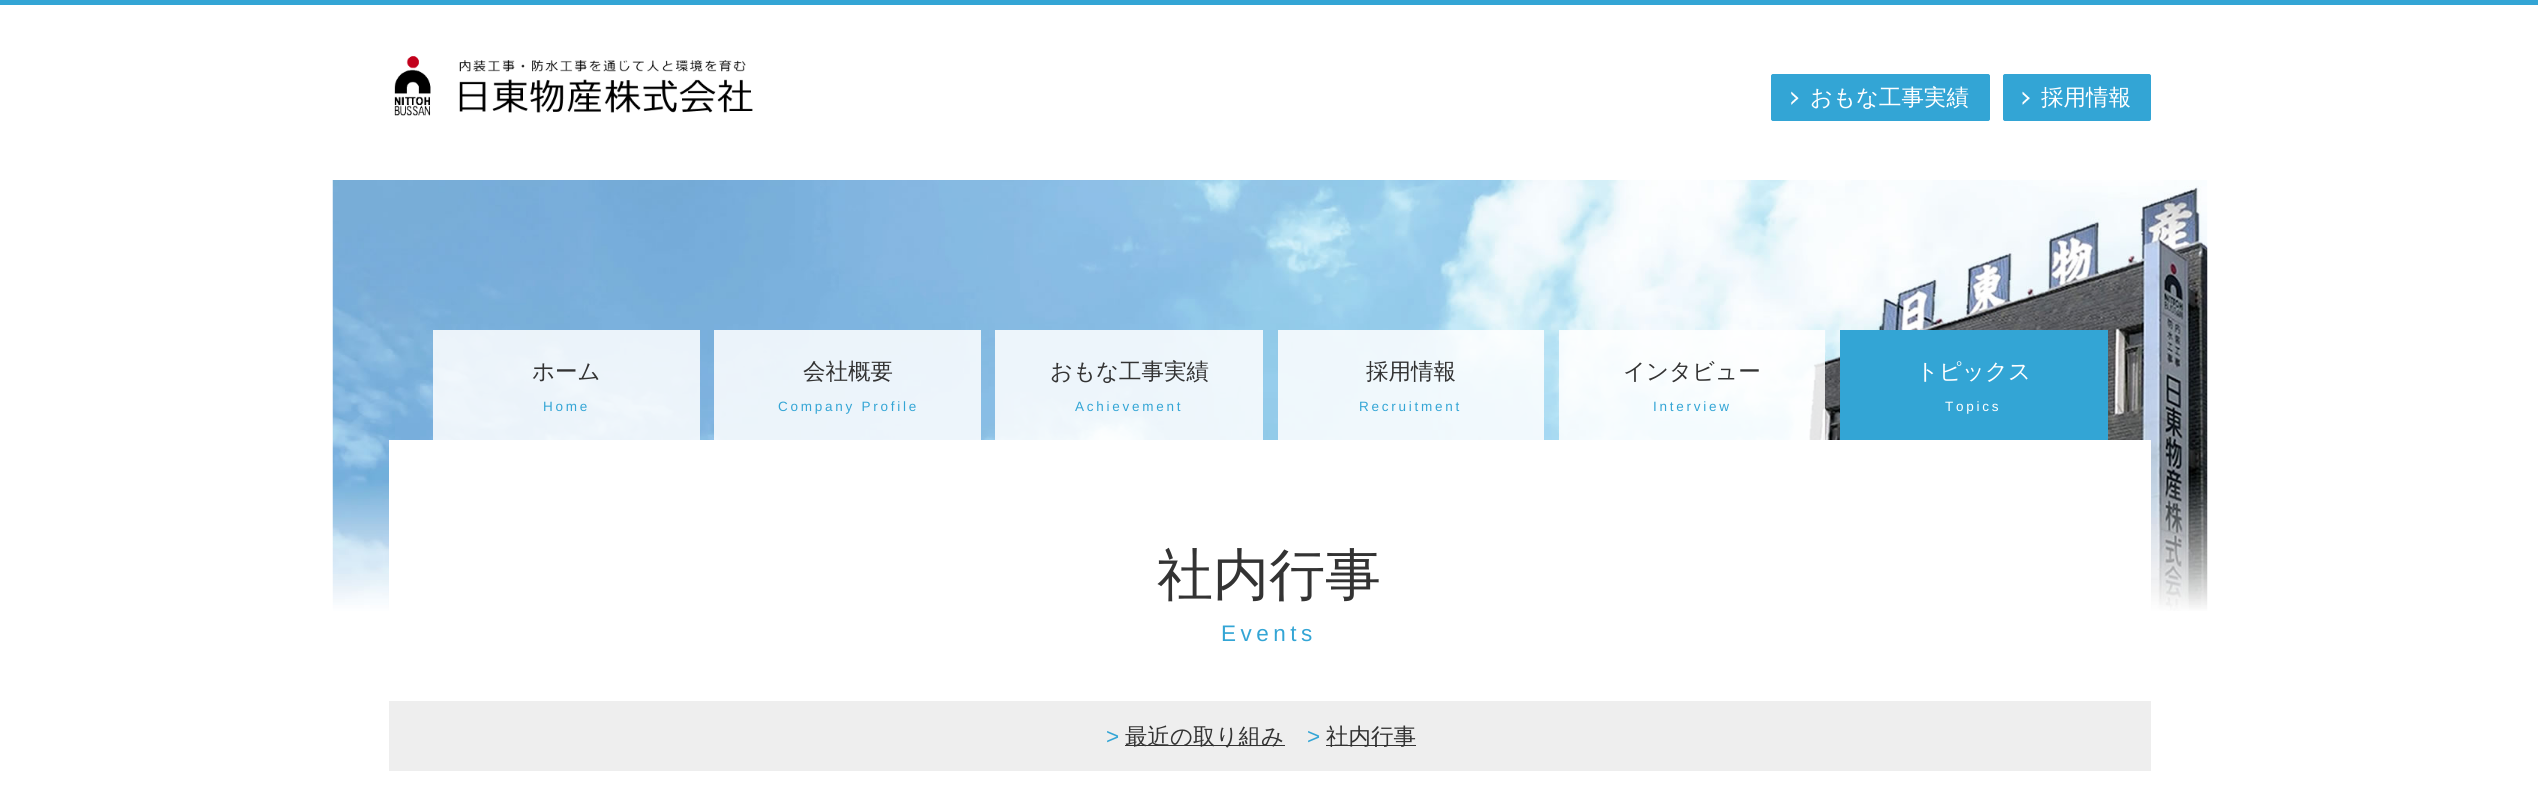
import math
import cairo

surface = cairo.ImageSurface(cairo.FORMAT_RGB24, 2538, 791)
ctx = cairo.Context(surface)
options = cairo.FontOptions()
options.set_hint_metrics(cairo.HINT_METRICS_OFF)
options.set_hint_style(cairo.HINT_STYLE_NONE)
ctx.set_font_options(options)
ctx.set_miter_limit(4)


def set_color(code):
    ctx.set_source_rgb(*(v / 255 for v in bytes.fromhex(code[-6:])))


def draw_text(x, y, s, family, size, color, bold=False, italic=False):
    ctx.select_font_face(family, cairo.FONT_SLANT_ITALIC if italic else cairo.FONT_SLANT_NORMAL, cairo.FONT_WEIGHT_BOLD if bold else cairo.FONT_WEIGHT_NORMAL)
    ctx.set_font_size(size)
    set_color(color)
    ctx.move_to(x, y)
    ctx.show_text(s)


def draw_spaced(x, y, s, letter, word):
    ctx.move_to(x, y)
    for ch in s:
        ctx.show_text(ch)
        ctx.rel_move_to(letter + word * (ch == ' '), 0)


def fill_rect(x, y, w, h, color):
    set_color(color)
    ctx.rectangle(x, y, w, h)
    ctx.fill()


def rounded_rect(x, y, w, h, r):
    ctx.new_sub_path()
    for i, (u, v) in enumerate([(x + w - r, y + h - r), (x + r, y + h - r), (x + r, y + r), (x + w - r, y + r)]):
        ctx.arc(u, v, r, i * math.pi / 2, (i + 1) * math.pi / 2)
    ctx.close_path()


def draw_image(path, x, y, w, h):
    ctx.save()
    ctx.set_source_surface(cairo.ImageSurface.create_from_png(path), x, y)
    ctx.rectangle(x, y, w, h)
    ctx.fill()
    ctx.restore()


set_color("#ffffff")
ctx.paint()
fill_rect(0, 0, 2538, 5, "#33a5d5")
draw_image("assets/img1.png", 394, 56, 359, 60)
rounded_rect(1771, 74, 219, 47, 2.5)
ctx.fill()
draw_image("assets/img2.png", 1791, 91, 8, 14)
rounded_rect(1771.5, 74.5, 218, 46, 2)
ctx.set_line_width(1)
ctx.stroke()
draw_text(1810, 105, "おもな工事実績", "WenQuanYi Zen Hei Medium", 22.5, "#ffffff")
set_color("#33a5d5")
rounded_rect(2003, 74, 148, 47, 2.5)
ctx.fill()
draw_image("assets/img3.png", 2022, 91, 8, 14)
rounded_rect(2003.5, 74.5, 147, 46, 2)
ctx.stroke()
draw_text(2041, 105, "採用情報", "WenQuanYi Zen Hei Medium", 22.5, "#ffffff")
draw_image("assets/img4.png", 332, 180, 1876, 431)
ctx.set_source_rgba(1, 1, 1, 0.85)
ctx.rectangle(433, 330, 267, 110)
ctx.fill()
draw_text(532, 379, "ホーム", "WenQuanYi Zen Hei Medium", 22.5, "#333333")
ctx.select_font_face("Liberation Sans")
ctx.set_font_size(13.5)
set_color("#33a5d5")
draw_spaced(543, 411, "Home", 2.75, 0)
ctx.set_source_rgba(1, 1, 1, 0.85)
ctx.rectangle(714, 330, 267, 110)
ctx.fill()
draw_text(803, 379, "会社概要", "WenQuanYi Zen Hei Medium", 22.5, "#333333")
ctx.select_font_face("Liberation Sans")
ctx.set_font_size(13.5)
set_color("#33a5d5")
draw_spaced(778, 411, "Company Profile", 2.75, 0)
ctx.set_source_rgba(1, 1, 1, 0.85)
ctx.rectangle(995, 330, 268, 110)
ctx.fill()
draw_text(1050, 379, "おもな工事実績", "WenQuanYi Zen Hei Medium", 22.5, "#333333")
ctx.select_font_face("Liberation Sans")
ctx.set_font_size(13.5)
set_color("#33a5d5")
draw_spaced(1075, 411, "Achievement", 2.75, 0)
ctx.set_source_rgba(1, 1, 1, 0.85)
ctx.rectangle(1278, 330, 266, 110)
ctx.fill()
draw_text(1366, 379, "採用情報", "WenQuanYi Zen Hei Medium", 22.5, "#333333")
ctx.select_font_face("Liberation Sans")
ctx.set_font_size(13.5)
set_color("#33a5d5")
draw_spaced(1359, 411, "Recruitment", 2.75, 0)
ctx.set_source_rgba(1, 1, 1, 0.85)
ctx.rectangle(1559, 330, 266, 110)
ctx.fill()
draw_text(1623, 379, "インタビュー", "WenQuanYi Zen Hei Medium", 22.5, "#333333")
ctx.select_font_face("Liberation Sans")
ctx.set_font_size(13.5)
set_color("#33a5d5")
draw_spaced(1653, 411, "Interview", 2.75, 0)
fill_rect(1840, 330, 268, 110, "#33a5d5")
draw_text(1916, 379, "トピックス", "WenQuanYi Zen Hei Medium", 22.5, "#ffffff")
ctx.select_font_face("Liberation Sans")
ctx.set_font_size(13.5)
draw_spaced(1945, 411, "Topics", 2.75, 0)
fill_rect(389, 440, 1762, 171, "#ffffff")
draw_text(1157, 594, "社内行事", "WenQuanYi Zen Hei Medium", 56, "#333333")
ctx.select_font_face("Liberation Sans")
ctx.set_font_size(22.5)
set_color("#33a5d5")
draw_spaced(1221, 641, "Events", 4.5, 0)
fill_rect(389, 701, 1762, 70, "#eeeeee")
draw_text(1106, 744, ">", "Liberation Sans", 22.5, "#33a5d5")
fill_rect(1125, 745, 160, 1, "#333333")
draw_text(1125, 744, "最近の取り組み", "WenQuanYi Zen Hei Medium", 22.5, "#333333")
draw_text(1307, 744, ">", "Liberation Sans", 22.5, "#33a5d5")
fill_rect(1326, 745, 90, 1, "#333333")
draw_text(1326, 744, "社内行事", "WenQuanYi Zen Hei Medium", 22.5, "#333333")
surface.write_to_png("output.png")
